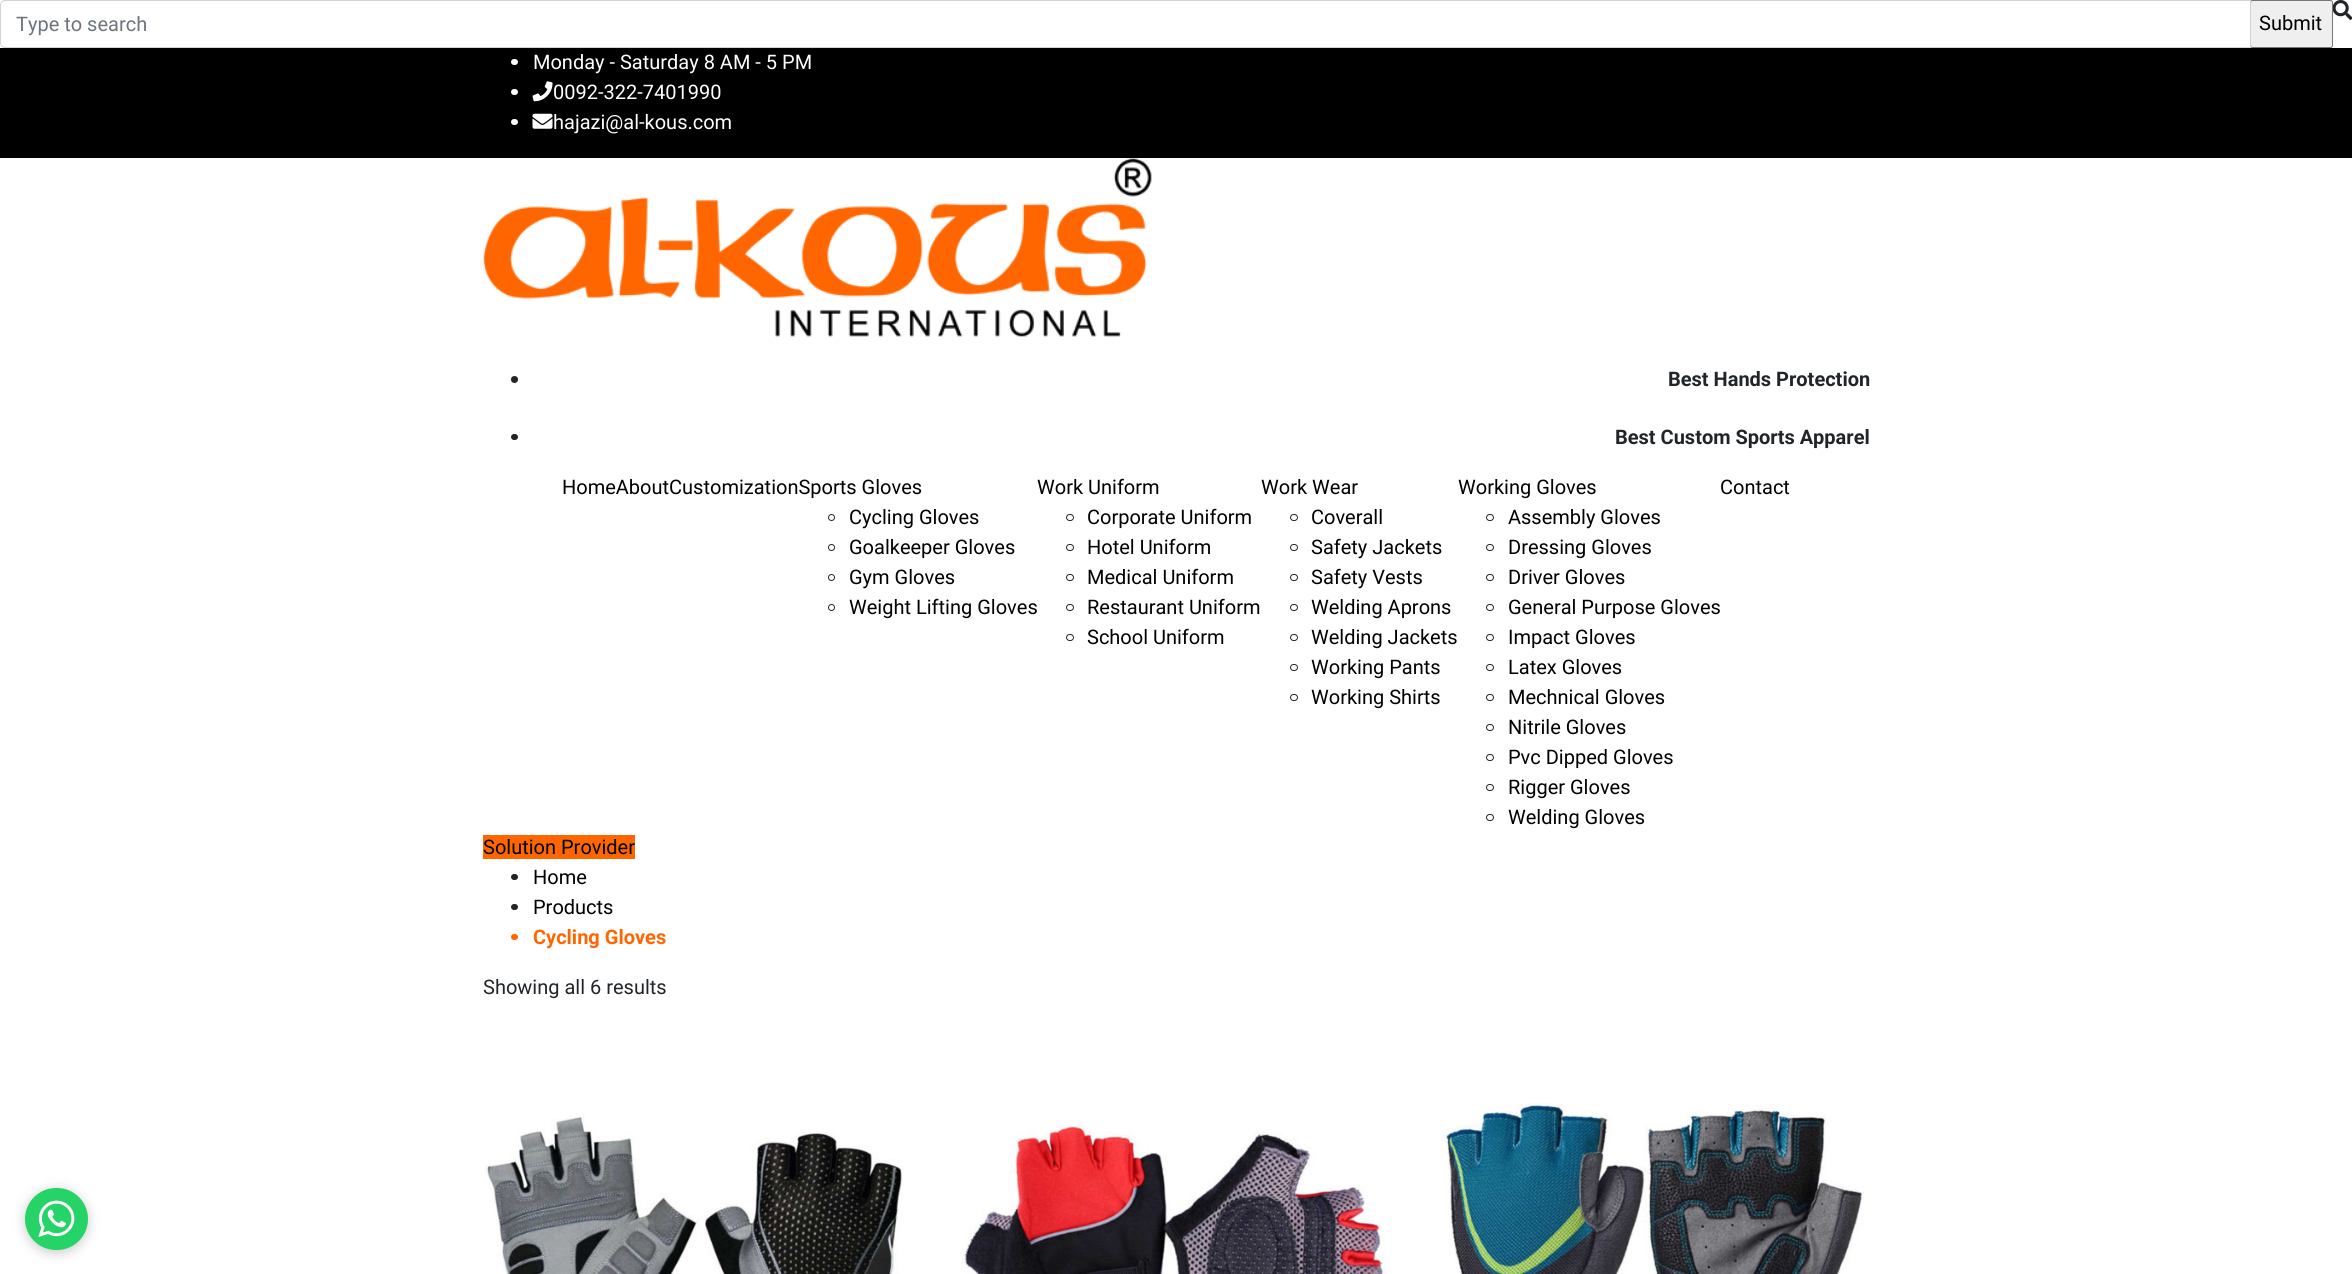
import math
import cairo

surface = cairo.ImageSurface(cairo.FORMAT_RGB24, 2352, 1274)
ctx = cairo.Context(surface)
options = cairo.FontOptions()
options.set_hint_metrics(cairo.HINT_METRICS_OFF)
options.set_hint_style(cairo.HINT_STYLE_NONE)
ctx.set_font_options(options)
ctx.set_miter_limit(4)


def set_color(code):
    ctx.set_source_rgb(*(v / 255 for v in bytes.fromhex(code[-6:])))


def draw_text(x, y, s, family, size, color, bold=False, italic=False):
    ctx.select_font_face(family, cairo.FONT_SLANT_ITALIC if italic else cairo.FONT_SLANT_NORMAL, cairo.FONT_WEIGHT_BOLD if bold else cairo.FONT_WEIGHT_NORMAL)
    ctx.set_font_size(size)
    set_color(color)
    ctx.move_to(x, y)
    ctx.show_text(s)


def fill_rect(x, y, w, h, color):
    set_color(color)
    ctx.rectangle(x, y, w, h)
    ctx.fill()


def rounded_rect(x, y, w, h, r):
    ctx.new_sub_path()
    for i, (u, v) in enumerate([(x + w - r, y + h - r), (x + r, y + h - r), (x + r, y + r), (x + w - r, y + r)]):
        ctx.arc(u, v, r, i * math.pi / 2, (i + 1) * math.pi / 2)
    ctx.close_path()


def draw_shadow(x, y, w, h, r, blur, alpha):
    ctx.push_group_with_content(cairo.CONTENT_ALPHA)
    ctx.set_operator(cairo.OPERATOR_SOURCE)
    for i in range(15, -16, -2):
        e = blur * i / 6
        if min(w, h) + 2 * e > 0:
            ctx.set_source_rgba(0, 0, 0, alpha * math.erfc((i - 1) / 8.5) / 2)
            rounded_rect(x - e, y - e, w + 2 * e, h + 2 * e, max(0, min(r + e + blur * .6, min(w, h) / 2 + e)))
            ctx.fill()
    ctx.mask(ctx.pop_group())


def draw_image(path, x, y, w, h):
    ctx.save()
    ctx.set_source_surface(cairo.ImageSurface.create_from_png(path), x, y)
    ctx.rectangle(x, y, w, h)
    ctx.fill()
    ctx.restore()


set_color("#ffffff")
ctx.paint()
set_color("#efefef")
rounded_rect(2250.5, 0.5, 82, 47, 2)
ctx.fill_preserve()
set_color("#767676")
ctx.set_line_width(1)
ctx.stroke()
ctx.new_path()
ctx.move_to(5, 0.5)
ctx.line_to(2250.5, 0.5)
ctx.line_to(2250.5, 47.5)
ctx.line_to(5, 47.5)
ctx.curve_to(2.5, 47.5, 0.5, 45.5, 0.5, 43)
ctx.line_to(0.5, 5)
ctx.curve_to(0.5, 2.5, 2.5, 0.5, 5, 0.5)
ctx.close_path()
set_color("#ced4da")
ctx.stroke()
draw_text(16, 31, "Type to search", "Roboto", 20, "#6c757d")
draw_image("assets/img1.png", 2333, 0, 19, 20)
draw_text(2259, 30, "Submit", "Roboto", 20, "#000000")
fill_rect(0, 48, 2352, 110, "#000000")
set_color("#ffffff")
rounded_rect(511, 59, 7, 6, 3)
ctx.fill()
draw_text(533, 69, "Monday - Saturday 8 AM - 5 PM", "Roboto", 20, "#ffffff")
rounded_rect(511, 89, 7, 6, 3)
ctx.fill()
draw_image("assets/img2.png", 532, 81, 21, 21)
draw_text(553, 99, "0092-322-7401990", "Roboto", 20, "#ffffff")
rounded_rect(511, 119, 7, 6, 3)
ctx.fill()
draw_image("assets/img3.png", 532, 113, 21, 16)
draw_text(553, 129, "hajazi@al-kous.com", "Roboto", 20, "#ffffff")
draw_image("assets/img4.png", 483, 158, 669, 179)
set_color("#212529")
ctx.arc(514.5, 379.5, 3.5, 0, 2 * math.pi)
ctx.fill()
draw_text(1668, 386, "Best Hands Protection", "Roboto", 20, "#212529", bold=True)
rounded_rect(511, 434, 7, 6, 3)
ctx.fill()
draw_text(1615, 444, "Best Custom Sports Apparel", "Roboto", 20, "#212529", bold=True)
draw_text(562, 494, "HomeAboutCustomizationSports Gloves", "Roboto", 20, "#000000")
draw_text(1037, 494, "Work Uniform", "Roboto", 20, "#000000")
rounded_rect(1066.5, 514.5, 7, 6, 3)
set_color("#212529")
ctx.stroke()
draw_text(1087, 524, "Corporate Uniform", "Roboto", 20, "#000000")
rounded_rect(1066.5, 544.5, 7, 6, 3)
set_color("#212529")
ctx.stroke()
draw_text(1087, 554, "Hotel Uniform", "Roboto", 20, "#000000")
rounded_rect(1066.5, 574.5, 7, 6, 3)
set_color("#212529")
ctx.stroke()
draw_text(1087, 584, "Medical Uniform", "Roboto", 20, "#000000")
rounded_rect(1066.5, 604.5, 7, 6, 3)
set_color("#212529")
ctx.stroke()
draw_text(1087, 614, "Restaurant Uniform", "Roboto", 20, "#000000")
rounded_rect(1066.5, 634.5, 7, 6, 3)
set_color("#212529")
ctx.stroke()
draw_text(1087, 644, "School Uniform", "Roboto", 20, "#000000")
draw_text(1261, 494, "Work Wear", "Roboto", 20, "#000000")
rounded_rect(1290.5, 514.5, 7, 6, 3)
set_color("#212529")
ctx.stroke()
draw_text(1311, 524, "Coverall", "Roboto", 20, "#000000")
rounded_rect(1290.5, 544.5, 7, 6, 3)
set_color("#212529")
ctx.stroke()
draw_text(1311, 554, "Safety Jackets", "Roboto", 20, "#000000")
rounded_rect(1290.5, 574.5, 7, 6, 3)
set_color("#212529")
ctx.stroke()
draw_text(1311, 584, "Safety Vests", "Roboto", 20, "#000000")
rounded_rect(1290.5, 604.5, 7, 6, 3)
set_color("#212529")
ctx.stroke()
draw_text(1311, 614, "Welding Aprons", "Roboto", 20, "#000000")
rounded_rect(1290.5, 634.5, 7, 6, 3)
set_color("#212529")
ctx.stroke()
draw_text(1311, 644, "Welding Jackets", "Roboto", 20, "#000000")
rounded_rect(1290.5, 664.5, 7, 6, 3)
set_color("#212529")
ctx.stroke()
draw_text(1311, 674, "Working Pants", "Roboto", 20, "#000000")
rounded_rect(1290.5, 694.5, 7, 6, 3)
set_color("#212529")
ctx.stroke()
draw_text(1311, 704, "Working Shirts", "Roboto", 20, "#000000")
draw_text(1458, 494, "Working Gloves", "Roboto", 20, "#000000")
rounded_rect(1486.5, 514.5, 7, 6, 3)
set_color("#212529")
ctx.stroke()
draw_text(1508, 524, "Assembly Gloves", "Roboto", 20, "#000000")
rounded_rect(1486.5, 544.5, 7, 6, 3)
set_color("#212529")
ctx.stroke()
draw_text(1508, 554, "Dressing Gloves", "Roboto", 20, "#000000")
rounded_rect(1486.5, 574.5, 7, 6, 3)
set_color("#212529")
ctx.stroke()
draw_text(1508, 584, "Driver Gloves", "Roboto", 20, "#000000")
rounded_rect(1486.5, 604.5, 7, 6, 3)
set_color("#212529")
ctx.stroke()
draw_text(1508, 614, "General Purpose Gloves", "Roboto", 20, "#000000")
rounded_rect(1486.5, 634.5, 7, 6, 3)
set_color("#212529")
ctx.stroke()
draw_text(1508, 644, "Impact Gloves", "Roboto", 20, "#000000")
rounded_rect(1486.5, 664.5, 7, 6, 3)
set_color("#212529")
ctx.stroke()
draw_text(1508, 674, "Latex Gloves", "Roboto", 20, "#000000")
rounded_rect(1486.5, 694.5, 7, 6, 3)
set_color("#212529")
ctx.stroke()
draw_text(1508, 704, "Mechnical Gloves", "Roboto", 20, "#000000")
rounded_rect(1486.5, 724.5, 7, 6, 3)
set_color("#212529")
ctx.stroke()
draw_text(1508, 734, "Nitrile Gloves", "Roboto", 20, "#000000")
rounded_rect(1486.5, 754.5, 7, 6, 3)
set_color("#212529")
ctx.stroke()
draw_text(1508, 764, "Pvc Dipped Gloves", "Roboto", 20, "#000000")
rounded_rect(1486.5, 784.5, 7, 6, 3)
set_color("#212529")
ctx.stroke()
draw_text(1508, 794, "Rigger Gloves", "Roboto", 20, "#000000")
rounded_rect(1486.5, 814.5, 7, 6, 3)
set_color("#212529")
ctx.stroke()
draw_text(1508, 824, "Welding Gloves", "Roboto", 20, "#000000")
draw_text(1720, 494, "Contact", "Roboto", 20, "#000000")
ctx.new_path()
ctx.arc(831.5, 517.5, 3, 0, 2 * math.pi)
set_color("#212529")
ctx.stroke()
draw_text(849, 524, "Cycling Gloves", "Roboto", 20, "#000000")
ctx.new_path()
ctx.arc(831.5, 547.5, 3, 0, 2 * math.pi)
set_color("#212529")
ctx.stroke()
draw_text(849, 554, "Goalkeeper Gloves", "Roboto", 20, "#000000")
ctx.new_path()
ctx.arc(831.5, 577.5, 3, 0, 2 * math.pi)
set_color("#212529")
ctx.stroke()
draw_text(849, 584, "Gym Gloves", "Roboto", 20, "#000000")
ctx.new_path()
ctx.arc(831.5, 607.5, 3, 0, 2 * math.pi)
set_color("#212529")
ctx.stroke()
draw_text(849, 614, "Weight Lifting Gloves", "Roboto", 20, "#000000")
fill_rect(483, 835, 152, 24, "#ff6600")
draw_text(483, 854, "Solution Provider", "Roboto", 20, "#000000")
set_color("#212529")
rounded_rect(511, 874, 7, 6, 3)
ctx.fill()
draw_text(533, 884, "Home", "Roboto", 20, "#000000")
set_color("#212529")
rounded_rect(511, 904, 7, 6, 3)
ctx.fill()
draw_text(533, 914, "Products", "Roboto", 20, "#000000")
set_color("#ff6600")
rounded_rect(511, 934, 7, 6, 3)
ctx.fill()
draw_text(533, 944, "Cycling Gloves", "Roboto", 20, "#ff6600", bold=True)
draw_text(483, 994, "Showing all 6 results", "Roboto", 20, "#212529")
draw_image("assets/img5.png", 484, 1113, 420, 161)
draw_image("assets/img6.png", 961, 1125, 425, 149)
draw_image("assets/img7.png", 1442, 1103, 422, 171)
set_color("#000000")
draw_shadow(25, 1190, 63, 63, 31.5, 6, 0.2)
set_color("#25d366")
rounded_rect(25, 1188, 63, 62, 31)
ctx.fill()
draw_image("assets/img8.png", 38, 1200, 37, 37)
surface.write_to_png("output.png")
